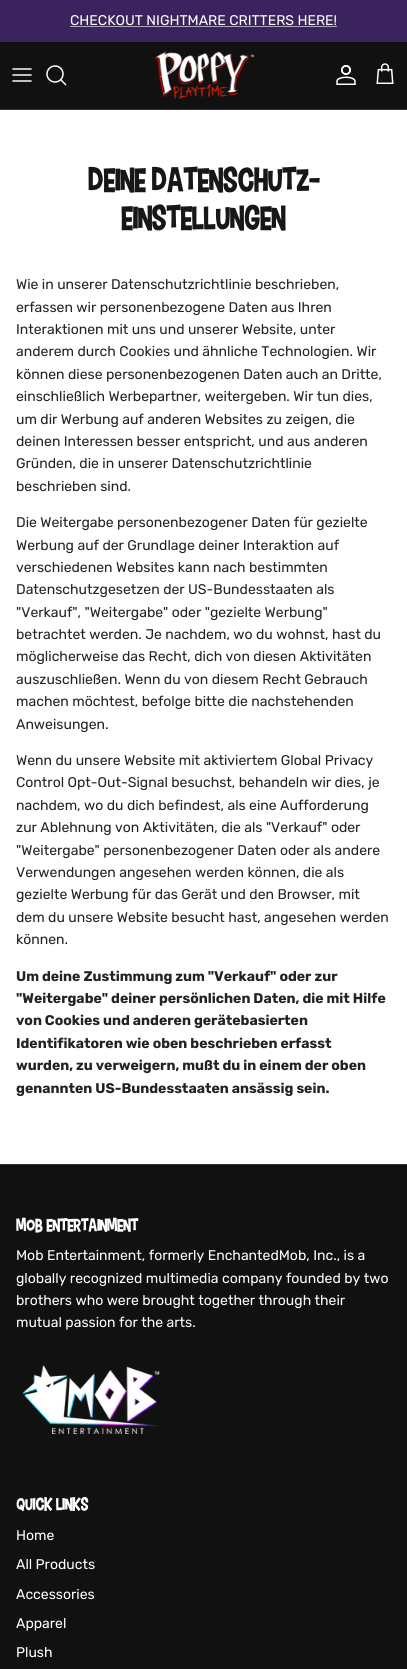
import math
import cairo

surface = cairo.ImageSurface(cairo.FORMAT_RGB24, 407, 1669)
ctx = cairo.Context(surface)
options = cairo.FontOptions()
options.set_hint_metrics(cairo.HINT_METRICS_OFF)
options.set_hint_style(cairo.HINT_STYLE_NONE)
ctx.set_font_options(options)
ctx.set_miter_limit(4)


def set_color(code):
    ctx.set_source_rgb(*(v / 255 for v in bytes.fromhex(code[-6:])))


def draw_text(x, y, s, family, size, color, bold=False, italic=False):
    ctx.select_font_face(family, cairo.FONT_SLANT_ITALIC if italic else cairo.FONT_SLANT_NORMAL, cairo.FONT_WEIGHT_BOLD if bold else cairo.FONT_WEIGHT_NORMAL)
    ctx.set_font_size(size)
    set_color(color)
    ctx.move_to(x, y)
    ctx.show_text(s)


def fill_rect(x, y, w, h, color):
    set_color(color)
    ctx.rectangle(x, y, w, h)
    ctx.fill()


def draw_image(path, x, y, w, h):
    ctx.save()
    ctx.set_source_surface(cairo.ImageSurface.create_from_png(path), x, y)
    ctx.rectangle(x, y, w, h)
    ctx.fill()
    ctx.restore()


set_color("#ffffff")
ctx.paint()
fill_rect(0, 0, 407, 42, "#3b245e")
draw_text(70, 25, "CHECKOUT NIGHTMARE CRITTERS HERE!", "Rubik", 14, "#ffffff")
fill_rect(70, 26, 267, 1, "#b1a7bf")
fill_rect(0, 42, 407, 67, "#111111")
fill_rect(0, 109, 407, 1, "#313131")
ctx.new_path()
ctx.move_to(13, 75)
ctx.line_to(31, 75)
ctx.move_to(13, 69)
ctx.line_to(31, 69)
ctx.move_to(13, 81)
ctx.line_to(31, 81)
set_color("#ffffff")
ctx.set_line_width(1.5)
ctx.set_line_cap(cairo.LINE_CAP_ROUND)
ctx.set_line_join(cairo.LINE_JOIN_ROUND)
ctx.stroke()
ctx.arc(55, 74, 8, 0, 2 * math.pi)
ctx.set_line_cap(cairo.LINE_CAP_BUTT)
ctx.set_line_join(cairo.LINE_JOIN_MITER)
ctx.stroke()
ctx.new_path()
ctx.move_to(61, 80)
ctx.line_to(65.5, 84.5)
ctx.set_line_cap(cairo.LINE_CAP_SQUARE)
ctx.stroke()
draw_image("assets/img1.png", 153, 51, 101, 48)
draw_image("assets/img2.png", 336, 65, 20, 20)
draw_image("assets/img3.png", 376, 63, 18, 21)
draw_text(88, 191, "DEINE DATENSCHUTZ-", "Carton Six", 32, "#171717", bold=True)
draw_text(121, 229, "EINSTELLUNGEN", "Carton Six", 32, "#171717", bold=True)
draw_text(16, 289, "Wie in unserer Datenschutzrichtlinie beschrieben,", "Rubik", 14, "#232323")
draw_text(16, 312, "erfassen wir personenbezogene Daten aus Ihren", "Rubik", 14, "#232323")
draw_text(16, 334, "Interaktionen mit uns und unserer Website, unter", "Rubik", 14, "#232323")
draw_text(16, 356, "anderem durch Cookies und ähnliche Technologien. Wir", "Rubik", 14, "#232323")
draw_text(16, 379, "können diese personenbezogenen Daten auch an Dritte,", "Rubik", 14, "#232323")
draw_text(16, 401, "einschließlich Werbepartner, weitergeben. Wir tun dies,", "Rubik", 14, "#232323")
draw_text(16, 424, "um dir Werbung auf anderen Websites zu zeigen, die", "Rubik", 14, "#232323")
draw_text(16, 446, "deinen Interessen besser entspricht, und aus anderen", "Rubik", 14, "#232323")
draw_text(16, 468, "Gründen, die in unserer Datenschutzrichtlinie", "Rubik", 14, "#232323")
draw_text(16, 491, "beschrieben sind.", "Rubik", 14, "#232323")
draw_text(16, 527, "Die Weitergabe personenbezogener Daten für gezielte", "Rubik", 14, "#232323")
draw_text(16, 550, "Werbung auf der Grundlage deiner Interaktion auf", "Rubik", 14, "#232323")
draw_text(16, 572, "verschiedenen Websites kann nach bestimmten", "Rubik", 14, "#232323")
draw_text(16, 594, "Datenschutzgesetzen der US-Bundesstaaten als", "Rubik", 14, "#232323")
draw_text(16, 617, "\"Verkauf\", \"Weitergabe\" oder \"gezielte Werbung\"", "Rubik", 14, "#232323")
draw_text(16, 639, "betrachtet werden. Je nachdem, wo du wohnst, hast du", "Rubik", 14, "#232323")
draw_text(16, 661, "möglicherweise das Recht, dich von diesen Aktivitäten", "Rubik", 14, "#232323")
draw_text(16, 684, "auszuschließen. Wenn du von diesem Recht Gebrauch", "Rubik", 14, "#232323")
draw_text(16, 706, "machen möchtest, befolge bitte die nachstehenden", "Rubik", 14, "#232323")
draw_text(16, 729, "Anweisungen.", "Rubik", 14, "#232323")
draw_text(16, 765, "Wenn du unsere Website mit aktiviertem Global Privacy", "Rubik", 14, "#232323")
draw_text(16, 787, "Control Opt-Out-Signal besuchst, behandeln wir dies, je", "Rubik", 14, "#232323")
draw_text(16, 810, "nachdem, wo du dich befindest, als eine Aufforderung", "Rubik", 14, "#232323")
draw_text(16, 832, "zur Ablehnung von Aktivitäten, die als \"Verkauf\" oder", "Rubik", 14, "#232323")
draw_text(16, 855, "\"Weitergabe\" personenbezogener Daten oder als andere", "Rubik", 14, "#232323")
draw_text(16, 877, "Verwendungen angesehen werden können, die als", "Rubik", 14, "#232323")
draw_text(16, 899, "gezielte Werbung für das Gerät und den Browser, mit", "Rubik", 14, "#232323")
draw_text(16, 922, "dem du unsere Website besucht hast, angesehen werden", "Rubik", 14, "#232323")
draw_text(16, 944, "können.", "Rubik", 14, "#232323")
draw_text(16, 981, "Um deine Zustimmung zum \"Verkauf\" oder zur", "Rubik", 14, "#232323", bold=True)
draw_text(16, 1003, "\"Weitergabe\" deiner persönlichen Daten, die mit Hilfe", "Rubik", 14, "#232323", bold=True)
draw_text(16, 1025, "von Cookies und anderen gerätebasierten", "Rubik", 14, "#232323", bold=True)
draw_text(16, 1048, "Identifikatoren wie oben beschrieben erfasst", "Rubik", 14, "#232323", bold=True)
draw_text(16, 1070, "wurden, zu verweigern, mußt du in einem der oben", "Rubik", 14, "#232323", bold=True)
draw_text(16, 1093, "genannten US-Bundesstaaten ansässig sein.", "Rubik", 14, "#232323", bold=True)
fill_rect(0, 1165, 407, 504, "#111111")
fill_rect(0, 1164, 407, 1, "#313131")
draw_text(16, 1231, "MOB ENTERTAINMENT", "Carton Six", 17, "#ffffff", bold=True)
draw_text(16, 1260, "Mob Entertainment, formerly EnchantedMob, Inc., is a", "Rubik", 14, "#ffffff")
draw_text(16, 1283, "globally recognized multimedia company founded by two", "Rubik", 14, "#ffffff")
draw_text(16, 1305, "brothers who were brought together through their", "Rubik", 14, "#ffffff")
draw_text(16, 1327, "mutual passion for the arts.", "Rubik", 14, "#ffffff")
draw_image("assets/img4.png", 22, 1365, 138, 69)
draw_text(16, 1510, "QUICK LINKS", "Carton Six", 17, "#ffffff", bold=True)
draw_text(16, 1540, "Home", "Rubik", 14, "#ffffff")
draw_text(16, 1569, "All Products", "Rubik", 14, "#ffffff")
draw_text(16, 1599, "Accessories", "Rubik", 14, "#ffffff")
draw_text(16, 1628, "Apparel", "Rubik", 14, "#ffffff")
draw_text(16, 1657, "Plush", "Rubik", 14, "#ffffff")
surface.write_to_png("output.png")
